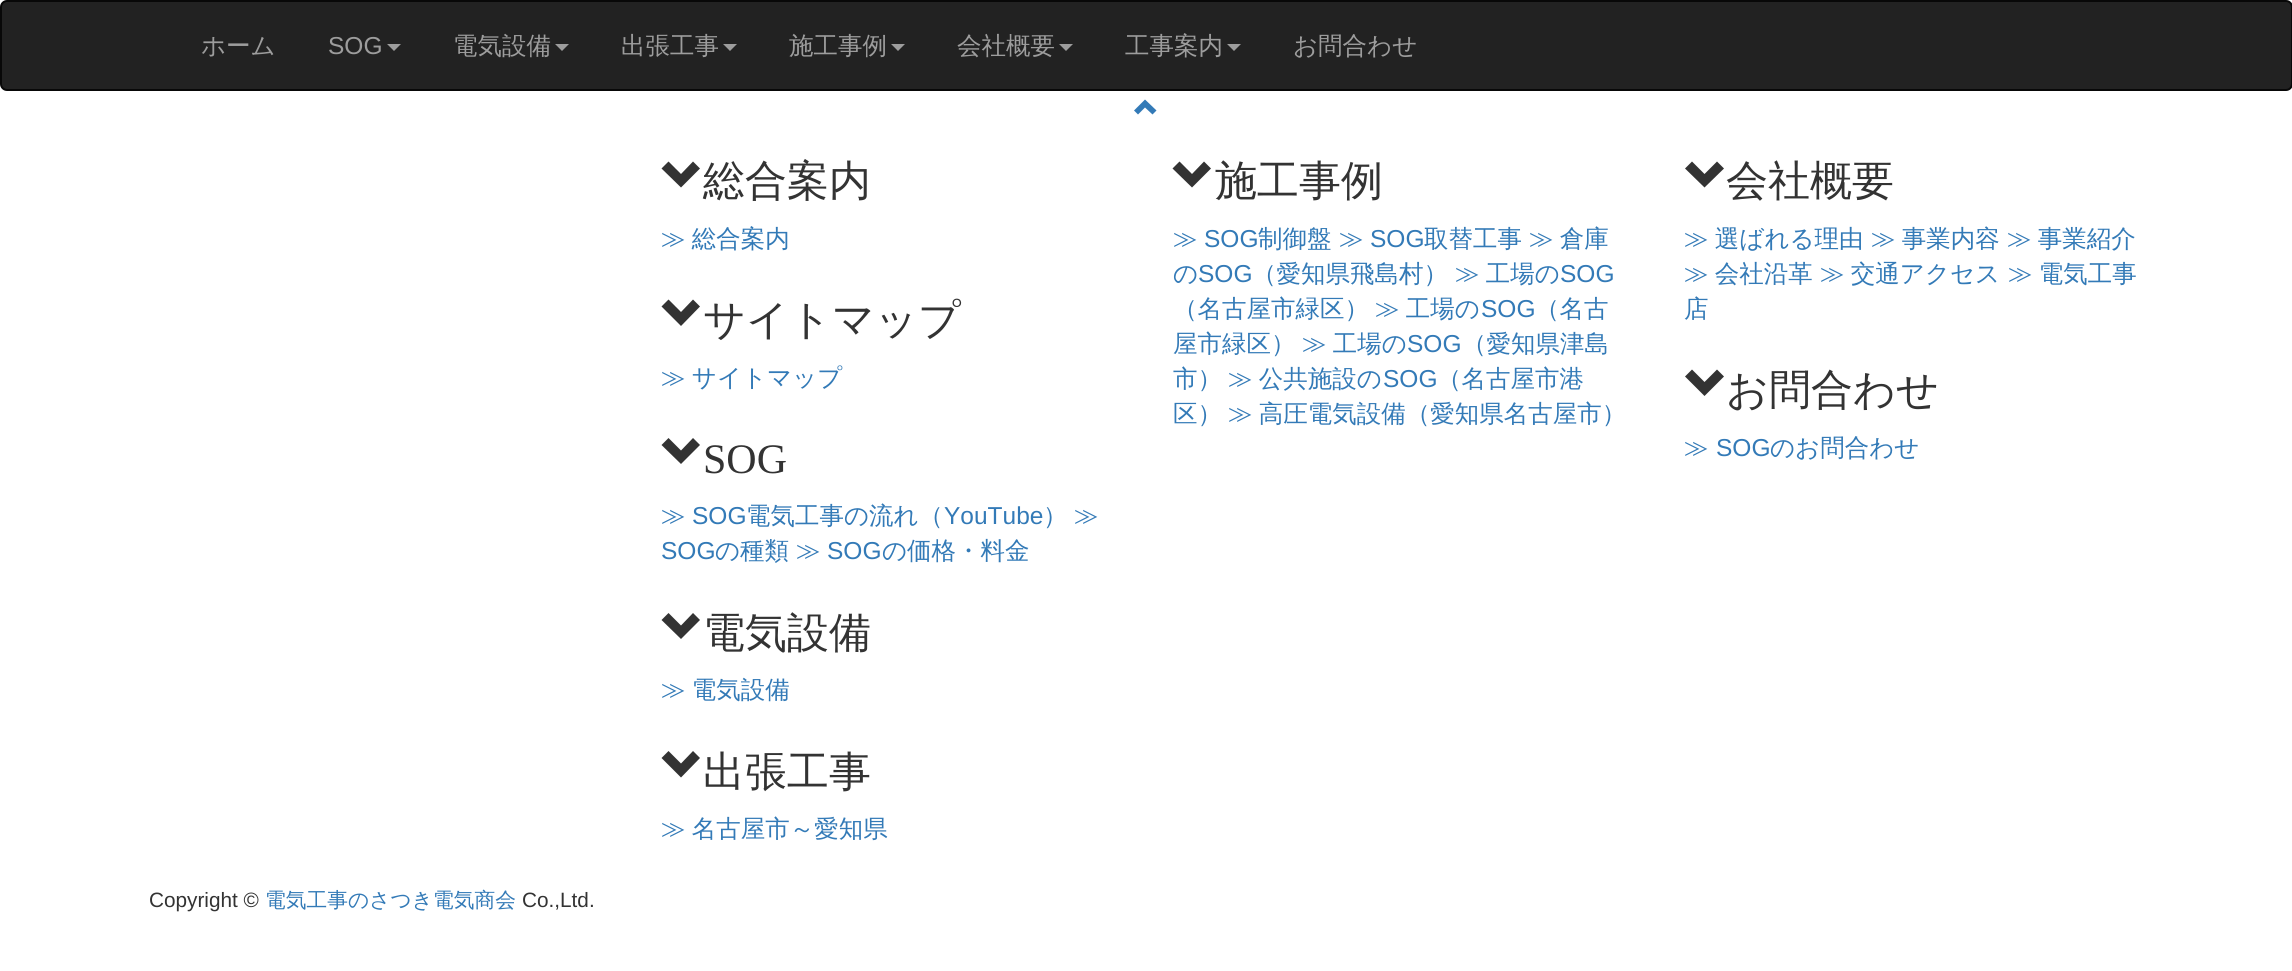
import math
import cairo

surface = cairo.ImageSurface(cairo.FORMAT_RGB24, 2292, 971)
ctx = cairo.Context(surface)
options = cairo.FontOptions()
options.set_hint_metrics(cairo.HINT_METRICS_OFF)
options.set_hint_style(cairo.HINT_STYLE_NONE)
ctx.set_font_options(options)
ctx.set_miter_limit(4)


def set_color(code):
    ctx.set_source_rgb(*(v / 255 for v in bytes.fromhex(code[-6:])))


def draw_text(x, y, s, family, size, color, bold=False, italic=False):
    ctx.select_font_face(family, cairo.FONT_SLANT_ITALIC if italic else cairo.FONT_SLANT_NORMAL, cairo.FONT_WEIGHT_BOLD if bold else cairo.FONT_WEIGHT_NORMAL)
    ctx.set_font_size(size)
    set_color(color)
    ctx.move_to(x, y)
    ctx.show_text(s)


def draw_spaced(x, y, s, letter, word):
    ctx.move_to(x, y)
    for ch in s:
        ctx.show_text(ch)
        ctx.rel_move_to(letter + word * (ch == ' '), 0)


def rounded_rect(x, y, w, h, r):
    ctx.new_sub_path()
    for i, (u, v) in enumerate([(x + w - r, y + h - r), (x + r, y + h - r), (x + r, y + r), (x + w - r, y + r)]):
        ctx.arc(u, v, r, i * math.pi / 2, (i + 1) * math.pi / 2)
    ctx.close_path()


set_color("#ffffff")
ctx.paint()
set_color("#222222")
rounded_rect(1, 1, 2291, 89, 6)
ctx.fill_preserve()
set_color("#080808")
ctx.stroke()
draw_text(201, 54, "ホーム", "WenQuanYi Zen Hei Medium", 24.5, "#9d9d9d")
draw_text(328, 54, "SOG", "Liberation Sans", 24.5, "#9d9d9d")
ctx.new_path()
ctx.move_to(387, 44)
ctx.line_to(401, 44)
ctx.line_to(394, 51)
ctx.close_path()
ctx.fill()
draw_text(453, 54, "電気設備", "WenQuanYi Zen Hei Medium", 24.5, "#9d9d9d")
ctx.new_path()
ctx.move_to(555, 44)
ctx.line_to(569, 44)
ctx.line_to(562, 51)
ctx.close_path()
ctx.fill()
draw_text(621, 54, "出張工事", "WenQuanYi Zen Hei Medium", 24.5, "#9d9d9d")
ctx.new_path()
ctx.move_to(723, 44)
ctx.line_to(737, 44)
ctx.line_to(730, 51)
ctx.close_path()
ctx.fill()
draw_text(789, 54, "施工事例", "WenQuanYi Zen Hei Medium", 24.5, "#9d9d9d")
ctx.new_path()
ctx.move_to(891, 44)
ctx.line_to(905, 44)
ctx.line_to(898, 51)
ctx.close_path()
ctx.fill()
draw_text(957, 54, "会社概要", "WenQuanYi Zen Hei Medium", 24.5, "#9d9d9d")
ctx.new_path()
ctx.move_to(1059, 44)
ctx.line_to(1073, 44)
ctx.line_to(1066, 51)
ctx.close_path()
ctx.fill()
draw_text(1125, 54, "工事案内", "WenQuanYi Zen Hei Medium", 24.5, "#9d9d9d")
ctx.new_path()
ctx.move_to(1227, 44)
ctx.line_to(1241, 44)
ctx.line_to(1234, 51)
ctx.close_path()
ctx.fill()
draw_text(1293, 54, "お問合わせ", "WenQuanYi Zen Hei Medium", 24.5, "#9d9d9d")
set_color("#337ab7")
ctx.new_path()
ctx.move_to(1156.5, 110.5)
ctx.line_to(1152.5, 114.5)
ctx.line_to(1145, 107.5)
ctx.line_to(1138, 114.5)
ctx.line_to(1134, 110.5)
ctx.line_to(1145, 99.5)
ctx.close_path()
ctx.fill()
set_color("#333333")
ctx.new_path()
ctx.move_to(700, 168.5)
ctx.line_to(681, 187.5)
ctx.line_to(661.5, 168.5)
ctx.line_to(668.5, 161.5)
ctx.line_to(681, 174)
ctx.line_to(693, 161.5)
ctx.close_path()
ctx.fill()
draw_text(703, 195, "総合案内", "WenQuanYi Zen Hei Medium", 42, "#333333")
ctx.set_font_size(24.5)
set_color("#337ab7")
draw_spaced(661, 247, "≫ 総合案内", 0, -1)
set_color("#333333")
ctx.new_path()
ctx.move_to(700, 306.5)
ctx.line_to(681, 326)
ctx.line_to(661.5, 306.5)
ctx.line_to(668.5, 299.5)
ctx.line_to(681, 312)
ctx.line_to(693, 299.5)
ctx.close_path()
ctx.fill()
draw_text(703, 334, "サイトマップ", "WenQuanYi Zen Hei Medium", 42, "#333333")
ctx.set_font_size(24.5)
set_color("#337ab7")
draw_spaced(661, 386, "≫ サイトマップ", 0, -1)
set_color("#333333")
ctx.new_path()
ctx.move_to(700, 445)
ctx.line_to(681, 464)
ctx.line_to(661.5, 445)
ctx.line_to(668.5, 438)
ctx.line_to(681, 450.5)
ctx.line_to(693, 438)
ctx.close_path()
ctx.fill()
draw_text(703, 473, "SOG", "Liberation Serif", 42, "#333333")
draw_text(661, 524, "≫", "WenQuanYi Zen Hei Medium", 24.5, "#337ab7")
draw_text(692, 524, "SOG", "Liberation Sans", 24.5, "#337ab7")
draw_text(746, 524, "電気工事の流れ（", "WenQuanYi Zen Hei Medium", 24.5, "#337ab7")
draw_text(944, 524, "YouTube", "Liberation Sans", 24.5, "#337ab7")
draw_text(1043, 524, "）", "WenQuanYi Zen Hei Medium", 24.5, "#337ab7")
draw_text(1074, 524, "≫", "WenQuanYi Zen Hei Medium", 24.5, "#337ab7")
draw_text(661, 559, "SOG", "Liberation Sans", 24.5, "#337ab7")
draw_text(715, 559, "の種類", "WenQuanYi Zen Hei Medium", 24.5, "#337ab7")
draw_text(796, 559, "≫", "WenQuanYi Zen Hei Medium", 24.5, "#337ab7")
draw_text(827, 559, "SOG", "Liberation Sans", 24.5, "#337ab7")
draw_text(882, 559, "の価格・料金", "WenQuanYi Zen Hei Medium", 24.5, "#337ab7")
set_color("#333333")
ctx.new_path()
ctx.move_to(700, 620)
ctx.line_to(681, 639)
ctx.line_to(661.5, 620)
ctx.line_to(668.5, 613)
ctx.line_to(681, 625.5)
ctx.line_to(693, 613)
ctx.close_path()
ctx.fill()
draw_text(703, 647, "電気設備", "WenQuanYi Zen Hei Medium", 42, "#333333")
ctx.set_font_size(24.5)
set_color("#337ab7")
draw_spaced(661, 698, "≫ 電気設備", 0, -1)
set_color("#333333")
ctx.new_path()
ctx.move_to(700, 758)
ctx.line_to(681, 777.5)
ctx.line_to(661.5, 758)
ctx.line_to(668.5, 751)
ctx.line_to(681, 763.5)
ctx.line_to(693, 751)
ctx.close_path()
ctx.fill()
draw_text(703, 786, "出張工事", "WenQuanYi Zen Hei Medium", 42, "#333333")
ctx.set_font_size(24.5)
set_color("#337ab7")
draw_spaced(661, 837, "≫ 名古屋市～愛知県", 0, -1)
set_color("#333333")
ctx.new_path()
ctx.move_to(1211, 168.5)
ctx.line_to(1192, 187.5)
ctx.line_to(1172.5, 168.5)
ctx.line_to(1179.5, 161.5)
ctx.line_to(1192, 174)
ctx.line_to(1204, 161.5)
ctx.close_path()
ctx.fill()
draw_text(1215, 195, "施工事例", "WenQuanYi Zen Hei Medium", 42, "#333333")
draw_text(1173, 247, "≫", "WenQuanYi Zen Hei Medium", 24.5, "#337ab7")
draw_text(1204, 247, "SOG", "Liberation Sans", 24.5, "#337ab7")
draw_text(1258, 247, "制御盤", "WenQuanYi Zen Hei Medium", 24.5, "#337ab7")
draw_text(1339, 247, "≫", "WenQuanYi Zen Hei Medium", 24.5, "#337ab7")
draw_text(1370, 247, "SOG", "Liberation Sans", 24.5, "#337ab7")
draw_text(1424, 247, "取替工事", "WenQuanYi Zen Hei Medium", 24.5, "#337ab7")
draw_spaced(1529, 247, "≫ 倉庫", 0, -1)
draw_text(1173, 282, "の", "WenQuanYi Zen Hei Medium", 24.5, "#337ab7")
draw_text(1198, 282, "SOG", "Liberation Sans", 24.5, "#337ab7")
draw_text(1252, 282, "（愛知県飛島村）", "WenQuanYi Zen Hei Medium", 24.5, "#337ab7")
draw_spaced(1455, 282, "≫ 工場の", 0, -1)
draw_text(1560, 282, "SOG", "Liberation Sans", 24.5, "#337ab7")
draw_text(1173, 317, "（名古屋市緑区）", "WenQuanYi Zen Hei Medium", 24.5, "#337ab7")
draw_spaced(1375, 317, "≫ 工場の", 0, -1)
draw_text(1481, 317, "SOG", "Liberation Sans", 24.5, "#337ab7")
draw_text(1535, 317, "（名古", "WenQuanYi Zen Hei Medium", 24.5, "#337ab7")
draw_text(1173, 352, "屋市緑区）", "WenQuanYi Zen Hei Medium", 24.5, "#337ab7")
draw_spaced(1302, 352, "≫ 工場の", 0, -1)
draw_text(1407, 352, "SOG", "Liberation Sans", 24.5, "#337ab7")
draw_text(1462, 352, "（愛知県津島", "WenQuanYi Zen Hei Medium", 24.5, "#337ab7")
draw_text(1173, 387, "市）", "WenQuanYi Zen Hei Medium", 24.5, "#337ab7")
draw_spaced(1228, 387, "≫ 公共施設の", 0, -1)
draw_text(1383, 387, "SOG", "Liberation Sans", 24.5, "#337ab7")
draw_text(1437, 387, "（名古屋市港", "WenQuanYi Zen Hei Medium", 24.5, "#337ab7")
draw_text(1173, 422, "区）", "WenQuanYi Zen Hei Medium", 24.5, "#337ab7")
draw_spaced(1228, 422, "≫ 高圧電気設備（愛知県名古屋市）", 0, -1)
set_color("#333333")
ctx.new_path()
ctx.move_to(1724, 168.5)
ctx.line_to(1704.5, 187.5)
ctx.line_to(1685, 168.5)
ctx.line_to(1692, 161.5)
ctx.line_to(1704.5, 174)
ctx.line_to(1717, 161.5)
ctx.close_path()
ctx.fill()
draw_text(1726, 195, "会社概要", "WenQuanYi Zen Hei Medium", 42, "#333333")
ctx.set_font_size(24.5)
set_color("#337ab7")
draw_spaced(1684, 247, "≫ 選ばれる理由", 0, -1)
draw_spaced(1871, 247, "≫ 事業内容", 0, -1)
draw_spaced(2007, 247, "≫ 事業紹介", 0, -1)
draw_spaced(1684, 282, "≫ 会社沿革", 0, -1)
draw_spaced(1820, 282, "≫ 交通アクセス", 0, -1)
draw_spaced(2008, 282, "≫ 電気工事", 0, -1)
draw_text(1684, 317, "店", "WenQuanYi Zen Hei Medium", 24.5, "#337ab7")
set_color("#333333")
ctx.new_path()
ctx.move_to(1724, 376.5)
ctx.line_to(1704.5, 396)
ctx.line_to(1685, 376.5)
ctx.line_to(1692, 369.5)
ctx.line_to(1704.5, 382)
ctx.line_to(1717, 369.5)
ctx.close_path()
ctx.fill()
draw_text(1726, 404, "お問合わせ", "WenQuanYi Zen Hei Medium", 42, "#333333")
draw_text(1684, 456, "≫", "WenQuanYi Zen Hei Medium", 24.5, "#337ab7")
draw_text(1716, 456, "SOG", "Liberation Sans", 24.5, "#337ab7")
draw_text(1770, 456, "のお問合わせ", "WenQuanYi Zen Hei Medium", 24.5, "#337ab7")
draw_text(149, 907, "Copyright ©", "Liberation Sans", 20.75, "#333333")
draw_text(265, 907, "電気工事のさつき電気商会", "WenQuanYi Zen Hei Medium", 20.75, "#337ab7")
draw_text(522, 907, "Co.,Ltd.", "Liberation Sans", 20.75, "#333333")
surface.write_to_png("output.png")
